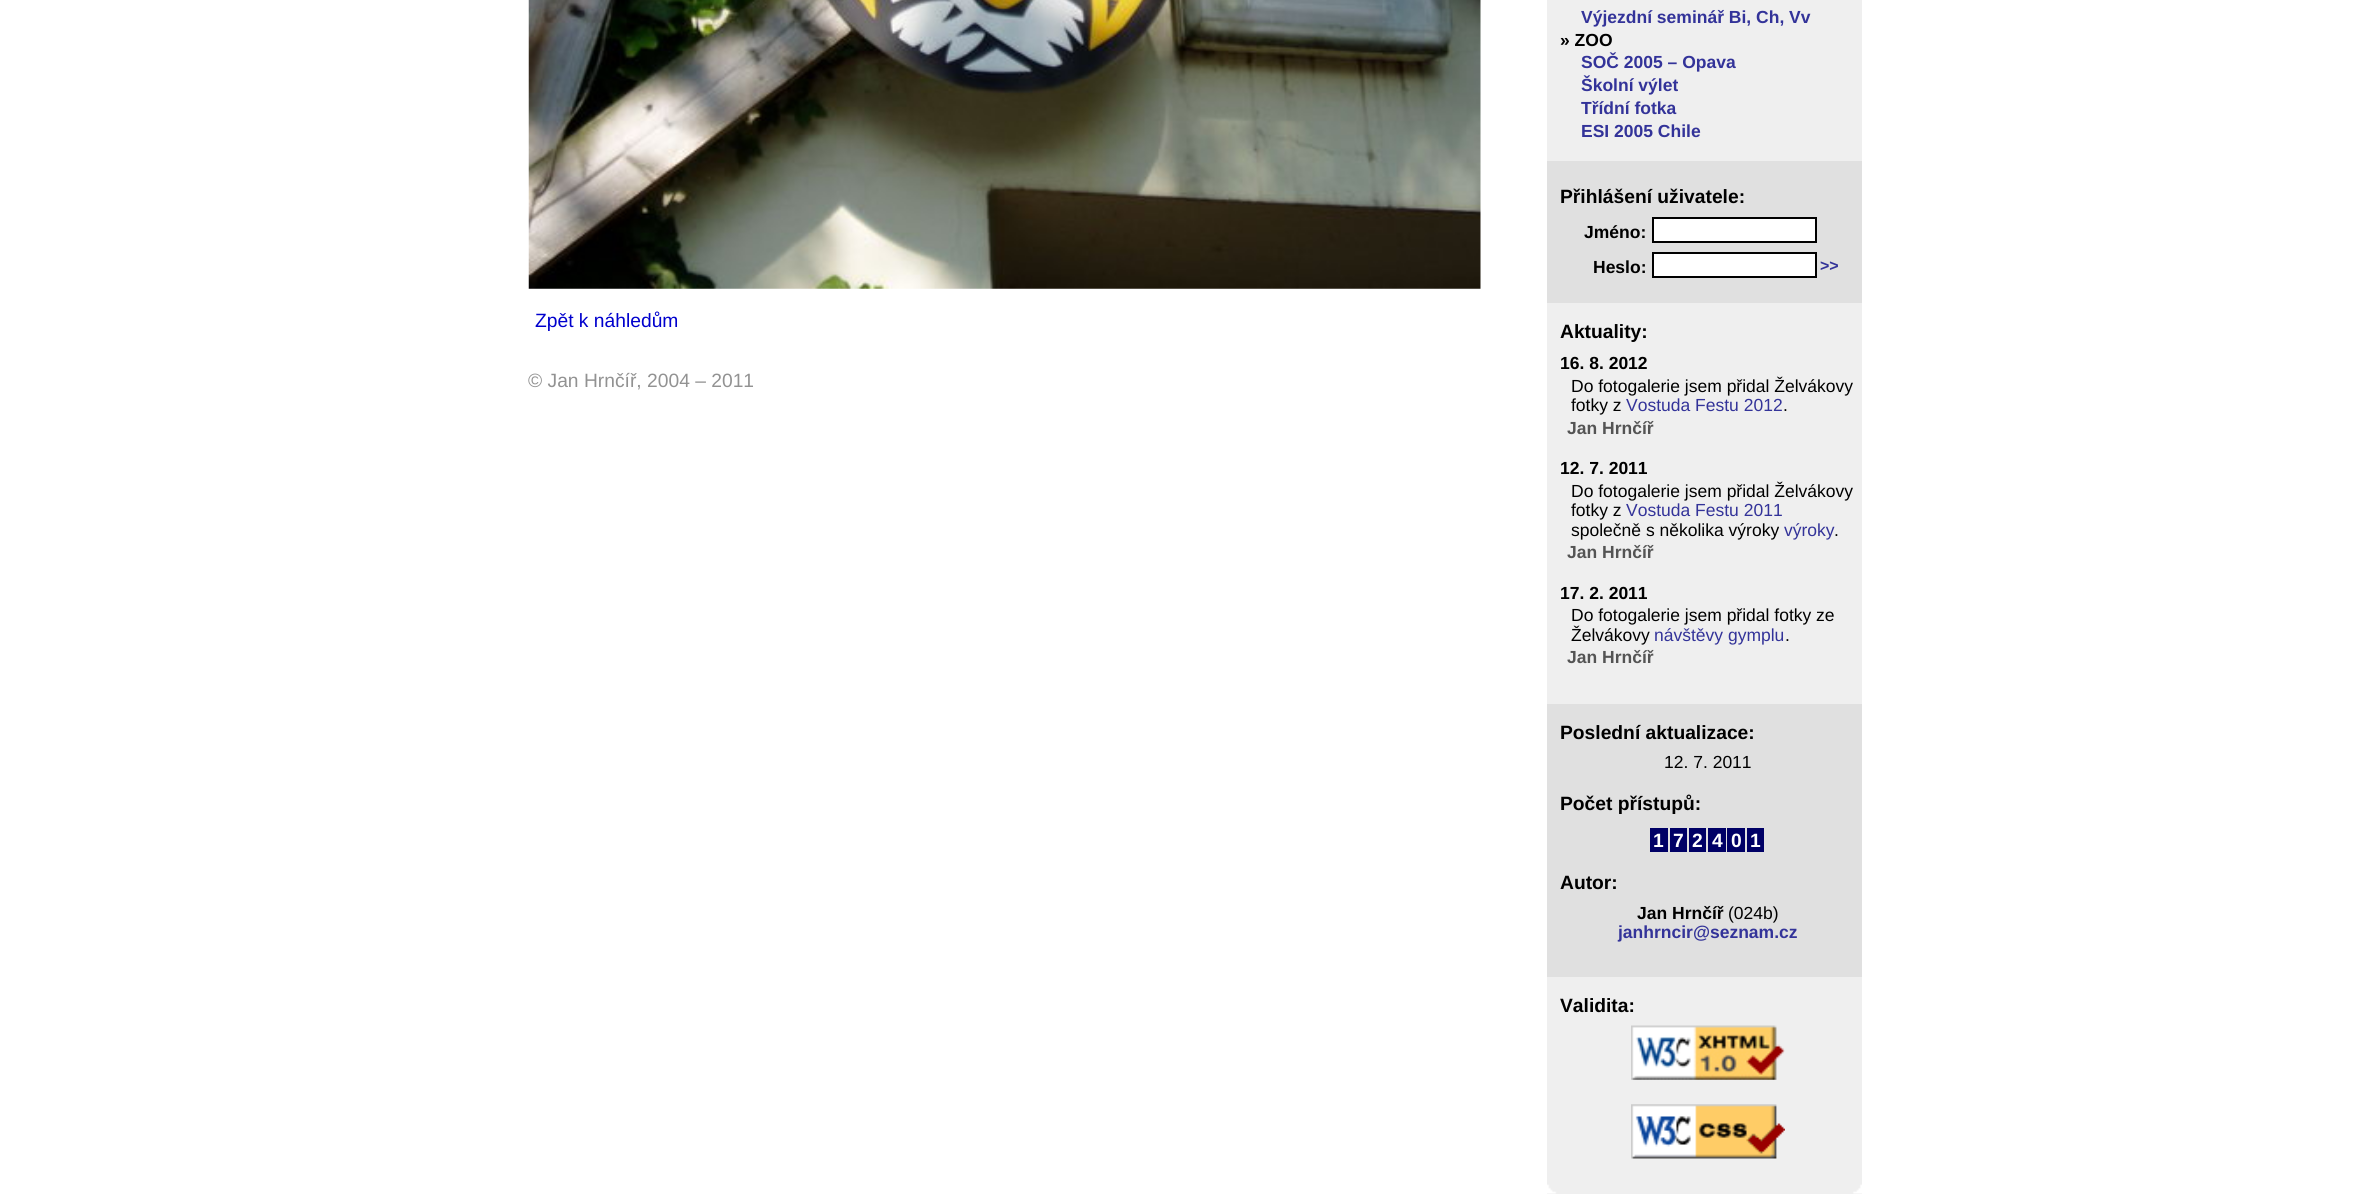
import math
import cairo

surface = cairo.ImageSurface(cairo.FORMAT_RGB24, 2374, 1203)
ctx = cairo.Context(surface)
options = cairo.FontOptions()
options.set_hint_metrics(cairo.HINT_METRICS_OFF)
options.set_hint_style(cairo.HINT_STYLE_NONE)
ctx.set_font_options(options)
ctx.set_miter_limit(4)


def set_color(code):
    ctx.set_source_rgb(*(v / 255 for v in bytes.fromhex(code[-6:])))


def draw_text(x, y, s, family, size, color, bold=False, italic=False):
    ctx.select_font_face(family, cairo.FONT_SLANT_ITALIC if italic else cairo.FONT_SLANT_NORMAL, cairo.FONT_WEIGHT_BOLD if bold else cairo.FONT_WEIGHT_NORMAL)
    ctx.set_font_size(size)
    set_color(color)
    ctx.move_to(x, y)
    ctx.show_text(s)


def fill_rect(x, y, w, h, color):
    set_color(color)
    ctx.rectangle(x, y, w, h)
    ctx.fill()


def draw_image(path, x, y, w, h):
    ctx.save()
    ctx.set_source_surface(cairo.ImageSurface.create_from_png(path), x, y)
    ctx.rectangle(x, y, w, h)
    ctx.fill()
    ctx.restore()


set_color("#ffffff")
ctx.paint()
draw_image("assets/img1.png", 528, 0, 953, 289)
draw_text(535, 327, "Zpět k náhledům", "Liberation Sans", 19.25, "#0000cd")
draw_text(528, 387, "© Jan Hrnčíř, 2004 – 2011", "Liberation Sans", 19.25, "#929292")
fill_rect(1547, 0, 315, 1194, "#efefef")
draw_text(1581, 23, "Výjezdní seminář Bi, Ch, Vv", "Liberation Sans", 17.5, "#333399", bold=True)
draw_text(1560, 46, "» ZOO", "Liberation Sans", 17.5, "#000000", bold=True)
draw_text(1581, 68, "SOČ 2005 – Opava", "Liberation Sans", 17.5, "#333399", bold=True)
draw_text(1581, 91, "Školní výlet", "Liberation Sans", 17.5, "#333399", bold=True)
draw_text(1581, 114, "Třídní fotka", "Liberation Sans", 17.5, "#333399", bold=True)
draw_text(1581, 137, "ESI 2005 Chile", "Liberation Sans", 17.5, "#333399", bold=True)
fill_rect(1547, 161, 315, 142, "#e0e0e0")
draw_text(1560, 203, "Přihlášení uživatele:", "Liberation Sans", 19.25, "#000000", bold=True)
draw_text(1584, 238, "Jméno:", "Liberation Sans", 17.5, "#000000", bold=True)
set_color("#ffffff")
ctx.rectangle(1653, 218, 163, 24)
ctx.fill_preserve()
set_color("#000000")
ctx.stroke()
draw_text(1593, 273, "Heslo:", "Liberation Sans", 17.5, "#000000", bold=True)
set_color("#ffffff")
ctx.rectangle(1653, 253, 163, 24)
ctx.fill_preserve()
set_color("#000000")
ctx.stroke()
draw_text(1820, 271, ">>", "Liberation Sans", 16, "#333399", bold=True)
draw_text(1560, 338, "Aktuality:", "Liberation Sans", 19.25, "#000000", bold=True)
draw_text(1560, 369, "16. 8. 2012", "Liberation Sans", 17.5, "#000000", bold=True)
draw_text(1571, 392, "Do fotogalerie jsem přidal Želvákovy", "Liberation Sans", 17.5, "#000000")
draw_text(1571, 411, "fotky z", "Liberation Sans", 17.5, "#000000")
draw_text(1626, 411, "Vostuda Festu 2012", "Liberation Sans", 17.5, "#333399")
draw_text(1783, 411, ".", "Liberation Sans", 17.5, "#000000")
draw_text(1567, 434, "Jan Hrnčíř", "Liberation Sans", 17.5, "#545454", bold=True)
draw_text(1560, 474, "12. 7. 2011", "Liberation Sans", 17.5, "#000000", bold=True)
draw_text(1571, 497, "Do fotogalerie jsem přidal Želvákovy", "Liberation Sans", 17.5, "#000000")
draw_text(1571, 516, "fotky z", "Liberation Sans", 17.5, "#000000")
draw_text(1626, 516, "Vostuda Festu 2011", "Liberation Sans", 17.5, "#333399")
draw_text(1571, 536, "společně s několika výroky", "Liberation Sans", 17.5, "#000000")
draw_text(1784, 536, "výroky", "Liberation Sans", 17.5, "#333399")
draw_text(1834, 536, ".", "Liberation Sans", 17.5, "#000000")
draw_text(1567, 558, "Jan Hrnčíř", "Liberation Sans", 17.5, "#545454", bold=True)
draw_text(1560, 599, "17. 2. 2011", "Liberation Sans", 17.5, "#000000", bold=True)
draw_text(1571, 621, "Do fotogalerie jsem přidal fotky ze", "Liberation Sans", 17.5, "#000000")
draw_text(1571, 641, "Želvákovy", "Liberation Sans", 17.5, "#000000")
draw_text(1654, 641, "návštěvy gymplu", "Liberation Sans", 17.5, "#333399")
draw_text(1785, 641, ".", "Liberation Sans", 17.5, "#000000")
draw_text(1567, 663, "Jan Hrnčíř", "Liberation Sans", 17.5, "#545454", bold=True)
fill_rect(1547, 704, 315, 273, "#e0e0e0")
draw_text(1560, 739, "Poslední aktualizace:", "Liberation Sans", 19.25, "#000000", bold=True)
draw_text(1664, 768, "12. 7. 2011", "Liberation Sans", 17.5, "#000000")
draw_text(1560, 810, "Počet přístupů:", "Liberation Sans", 19.25, "#000000", bold=True)
fill_rect(1650, 828, 18, 24, "#000066")
draw_text(1653, 847, "1", "Liberation Sans", 19.25, "#ffffff", bold=True)
fill_rect(1670, 828, 17, 24, "#000066")
draw_text(1673, 847, "7", "Liberation Sans", 19.25, "#ffffff", bold=True)
fill_rect(1689, 828, 17, 24, "#000066")
draw_text(1692, 847, "2", "Liberation Sans", 19.25, "#ffffff", bold=True)
fill_rect(1708, 828, 18, 24, "#000066")
draw_text(1712, 847, "4", "Liberation Sans", 19.25, "#ffffff", bold=True)
fill_rect(1727, 828, 18, 24, "#000066")
draw_text(1731, 847, "0", "Liberation Sans", 19.25, "#ffffff", bold=True)
fill_rect(1747, 828, 17, 24, "#000066")
draw_text(1750, 847, "1", "Liberation Sans", 19.25, "#ffffff", bold=True)
draw_text(1560, 889, "Autor:", "Liberation Sans", 19.25, "#000000", bold=True)
draw_text(1637, 919, "Jan Hrnčíř", "Liberation Sans", 17.5, "#000000", bold=True)
draw_text(1728, 919, "(024b)", "Liberation Sans", 17.5, "#000000")
draw_text(1618, 938, "janhrncir@seznam.cz", "Liberation Sans", 17.5, "#333399", bold=True)
draw_text(1560, 1012, "Validita:", "Liberation Sans", 19.25, "#000000", bold=True)
draw_image("assets/img2.png", 1631, 1025, 154, 55)
draw_image("assets/img3.png", 1631, 1104, 154, 55)
draw_image("assets/img4.png", 1547, 1184, 315, 10)
surface.write_to_png("output.png")
